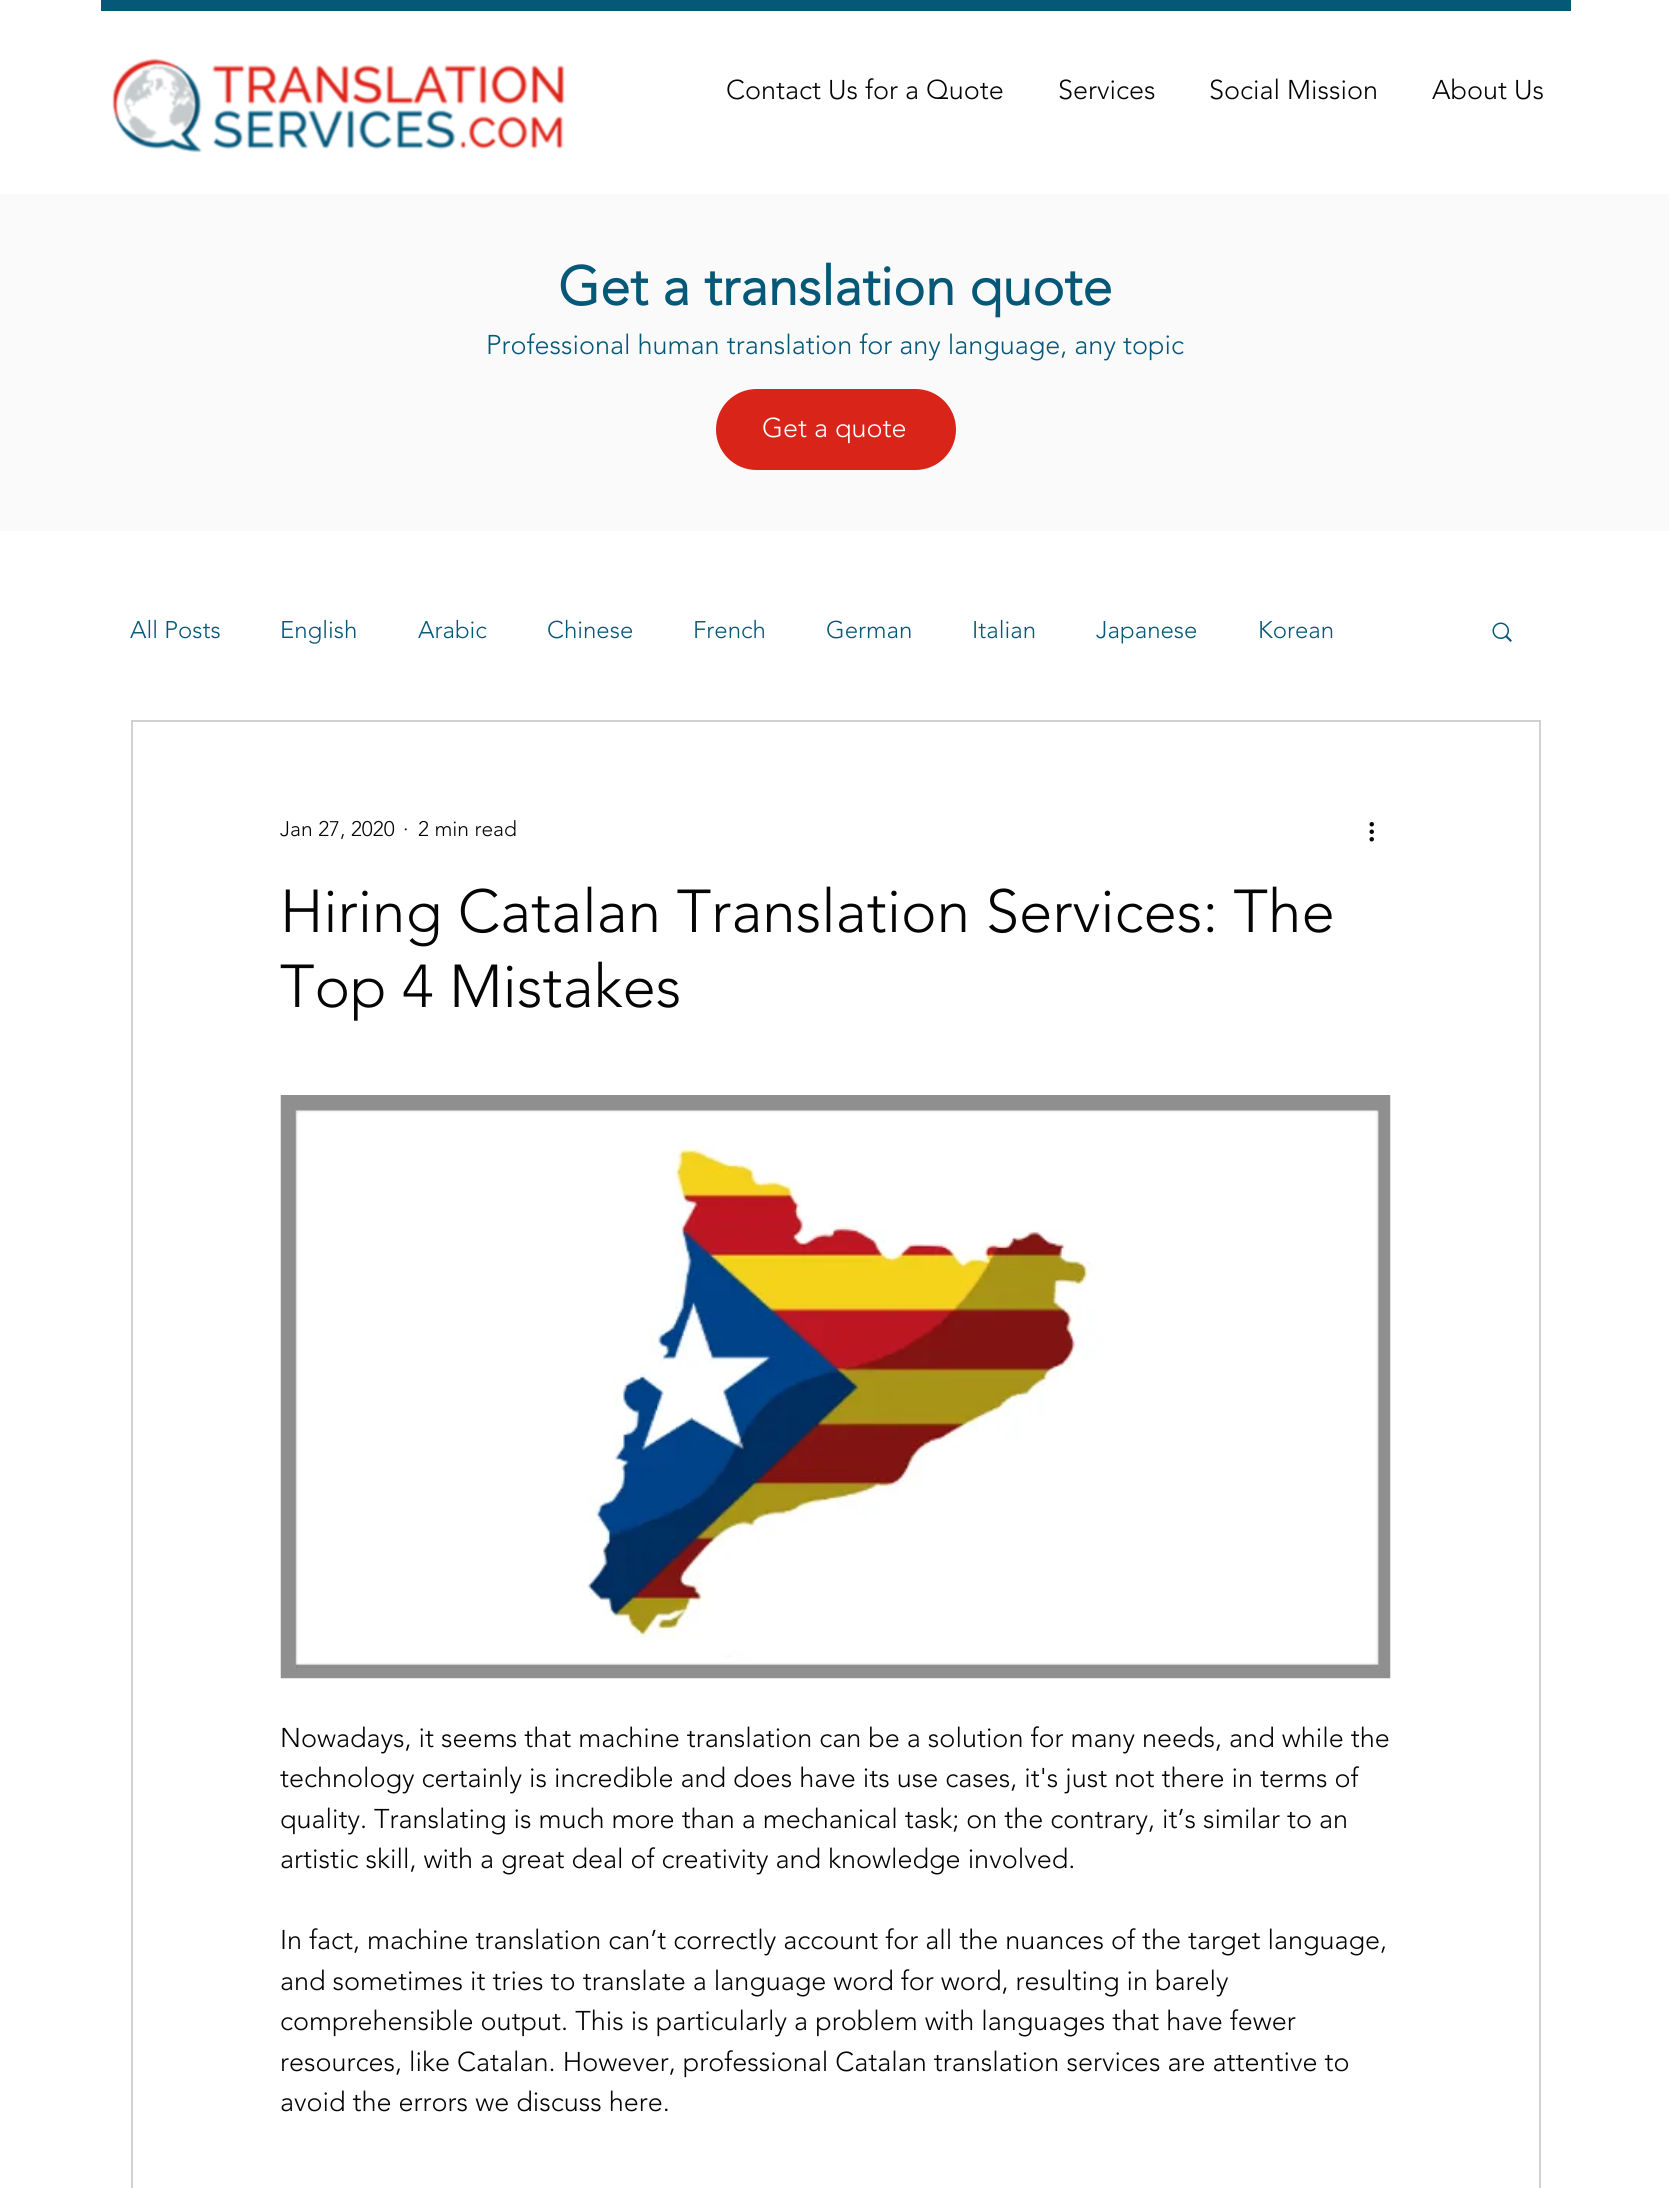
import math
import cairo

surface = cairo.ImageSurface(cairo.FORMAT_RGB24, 1669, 2188)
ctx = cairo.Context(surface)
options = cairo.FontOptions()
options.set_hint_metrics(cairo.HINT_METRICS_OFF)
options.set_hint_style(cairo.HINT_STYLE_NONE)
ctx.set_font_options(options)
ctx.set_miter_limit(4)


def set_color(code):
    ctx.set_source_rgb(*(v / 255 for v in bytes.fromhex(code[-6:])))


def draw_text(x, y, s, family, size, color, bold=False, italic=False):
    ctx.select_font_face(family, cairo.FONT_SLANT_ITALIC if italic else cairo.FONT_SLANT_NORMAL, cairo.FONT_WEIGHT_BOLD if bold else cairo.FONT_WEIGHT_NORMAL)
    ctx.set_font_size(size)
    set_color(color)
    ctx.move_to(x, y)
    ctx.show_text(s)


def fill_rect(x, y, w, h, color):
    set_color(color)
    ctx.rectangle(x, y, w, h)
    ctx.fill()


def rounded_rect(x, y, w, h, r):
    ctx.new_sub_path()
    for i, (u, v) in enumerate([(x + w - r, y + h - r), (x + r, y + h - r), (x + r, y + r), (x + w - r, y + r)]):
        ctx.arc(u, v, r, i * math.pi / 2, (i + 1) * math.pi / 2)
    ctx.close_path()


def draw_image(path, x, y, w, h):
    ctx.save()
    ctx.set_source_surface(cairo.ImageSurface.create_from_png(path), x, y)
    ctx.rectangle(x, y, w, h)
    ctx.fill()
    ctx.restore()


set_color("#ffffff")
ctx.paint()
fill_rect(101, 0, 1470, 11, "#065878")
draw_image("assets/img1.png", 112, 58, 453, 95)
draw_text(726, 99, "Contact Us for a Quote", "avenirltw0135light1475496 Light", 27, "#050506")
draw_text(1058, 99, "Services", "avenirltw0135light1475496 Light", 27, "#050506")
draw_text(1209, 99, "Social Mission", "avenirltw0135light1475496 Light", 27, "#050506")
draw_text(1432, 99, "About Us", "avenirltw0135light1475496 Light", 27, "#050506")
fill_rect(0, 194, 1669, 337, "#fafafa")
draw_text(558, 305, "Get a translation quote", "avenirltw0135light1475496", 54, "#065878", bold=True)
draw_text(486, 354, "Professional human translation for any language, any topic", "avenirltw0135light1475496 Light", 27, "#065878")
set_color("#d9241a")
rounded_rect(716, 389, 240, 81, 40.5)
ctx.fill()
draw_text(762, 437, "Get a quote", "avenirltw0135light1475496 Light", 27, "#ffffff")
draw_text(130, 638, "All Posts", "avenirltw0135light1475496 Light", 24, "#065878")
draw_text(280, 638, "English", "avenirltw0135light1475496 Light", 24, "#065878")
draw_text(418, 638, "Arabic", "avenirltw0135light1475496 Light", 24, "#065878")
draw_text(547, 638, "Chinese", "avenirltw0135light1475496 Light", 24, "#065878")
draw_text(693, 638, "French", "avenirltw0135light1475496 Light", 24, "#065878")
draw_text(826, 638, "German", "avenirltw0135light1475496 Light", 24, "#065878")
draw_text(972, 638, "Italian", "avenirltw0135light1475496 Light", 24, "#065878")
draw_text(1096, 638, "Japanese", "avenirltw0135light1475496 Light", 24, "#065878")
draw_text(1258, 638, "Korean", "avenirltw0135light1475496 Light", 24, "#065878")
draw_image("assets/img2.png", 1492, 622, 20, 20)
ctx.rectangle(132, 721, 1408, 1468)
set_color("#d1d1d1")
ctx.stroke()
draw_text(280, 836, "Jan 27, 2020", "avenirltw0135light1475496 Light", 21, "#050506")
draw_text(403, 836, "·", "avenirltw0135light1475496 Light", 21, "#050506")
draw_text(418, 836, "2 min read", "avenirltw0135light1475496 Light", 21, "#050506")
draw_image("assets/img3.png", 1369, 822, 5, 20)
draw_text(280, 932, "Hiring Catalan Translation Services: The", "avenirltw0135light1475496 Light", 60, "#050506")
draw_text(280, 1007, "Top 4 Mistakes", "avenirltw0135light1475496 Light", 60, "#050506")
draw_image("assets/img4.png", 280, 1095, 1111, 584)
draw_text(280, 1747, "Nowadays, it seems that machine translation can be a solution for many needs, and while the", "avenirltw0135light1475496 Light", 27, "#050506")
draw_text(280, 1787, "technology certainly is incredible and does have its use cases, it's just not there in terms of", "avenirltw0135light1475496 Light", 27, "#050506")
draw_text(280, 1828, "quality. Translating is much more than a mechanical task; on the contrary, it’s similar to an", "avenirltw0135light1475496 Light", 27, "#050506")
draw_text(280, 1868, "artistic skill, with a great deal of creativity and knowledge involved.", "avenirltw0135light1475496 Light", 27, "#050506")
draw_text(280, 1949, "In fact, machine translation can’t correctly account for all the nuances of the target language,", "avenirltw0135light1475496 Light", 27, "#050506")
draw_text(280, 1990, "and sometimes it tries to translate a language word for word, resulting in barely", "avenirltw0135light1475496 Light", 27, "#050506")
draw_text(280, 2030, "comprehensible output. This is particularly a problem with languages that have fewer", "avenirltw0135light1475496 Light", 27, "#050506")
draw_text(280, 2071, "resources, like Catalan. However, professional Catalan translation services are attentive to", "avenirltw0135light1475496 Light", 27, "#050506")
draw_text(280, 2111, "avoid the errors we discuss here.", "avenirltw0135light1475496 Light", 27, "#050506")
surface.write_to_png("output.png")
